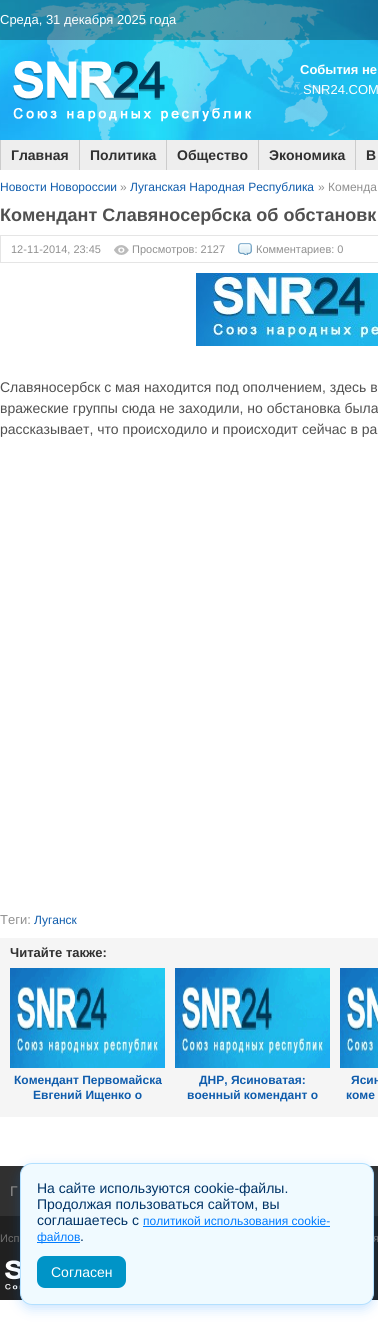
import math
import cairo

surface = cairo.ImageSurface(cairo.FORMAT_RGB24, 378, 1325)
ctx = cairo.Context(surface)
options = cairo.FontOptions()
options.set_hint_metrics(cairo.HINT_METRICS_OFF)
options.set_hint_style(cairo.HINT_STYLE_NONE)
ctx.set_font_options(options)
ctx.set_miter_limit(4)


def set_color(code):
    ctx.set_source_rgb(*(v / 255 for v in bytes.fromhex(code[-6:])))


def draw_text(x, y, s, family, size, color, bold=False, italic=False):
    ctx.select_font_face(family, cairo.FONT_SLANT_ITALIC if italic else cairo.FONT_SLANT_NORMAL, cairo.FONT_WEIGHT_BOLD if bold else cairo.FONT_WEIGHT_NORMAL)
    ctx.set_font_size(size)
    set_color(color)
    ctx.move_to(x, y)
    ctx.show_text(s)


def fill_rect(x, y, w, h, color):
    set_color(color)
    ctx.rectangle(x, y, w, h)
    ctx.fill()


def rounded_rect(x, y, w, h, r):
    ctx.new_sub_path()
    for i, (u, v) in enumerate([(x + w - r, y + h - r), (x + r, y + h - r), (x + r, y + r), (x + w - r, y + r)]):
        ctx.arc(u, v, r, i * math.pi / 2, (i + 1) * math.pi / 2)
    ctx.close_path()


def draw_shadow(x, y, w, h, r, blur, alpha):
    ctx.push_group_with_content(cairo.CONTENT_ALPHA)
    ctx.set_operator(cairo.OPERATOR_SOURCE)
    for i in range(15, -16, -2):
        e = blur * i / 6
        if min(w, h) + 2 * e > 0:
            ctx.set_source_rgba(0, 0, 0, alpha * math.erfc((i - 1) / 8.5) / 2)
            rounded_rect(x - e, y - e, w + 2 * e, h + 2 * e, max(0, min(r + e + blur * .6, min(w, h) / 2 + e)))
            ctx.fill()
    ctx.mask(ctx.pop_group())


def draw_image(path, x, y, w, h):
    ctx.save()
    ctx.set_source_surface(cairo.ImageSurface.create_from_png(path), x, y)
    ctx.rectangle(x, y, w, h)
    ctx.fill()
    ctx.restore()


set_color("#ffffff")
ctx.paint()
draw_image("assets/img1.png", 0, 0, 378, 140)
ctx.set_source_rgba(0, 0, 0, 0.3)
ctx.rectangle(0, 0, 378, 40)
ctx.fill()
draw_text(0, 24, "Среда, 31 декабря 2025 года", "Liberation Sans", 13, "#ffffff")
draw_image("assets/img2.png", 13, 61, 239, 61)
draw_text(300, 74, "События не", "Liberation Sans", 13, "#ffffff", bold=True)
draw_text(303, 94, "SNR24.COM", "Liberation Sans", 13, "#ffffff")
fill_rect(1, 140, 377, 30, "#eeeeee")
fill_rect(0, 140, 1, 30, "#cccccc")
fill_rect(79, 140, 1, 30, "#cccccc")
draw_text(11, 160, "Главная", "Liberation Sans", 14, "#303030", bold=True)
fill_rect(166, 140, 1, 30, "#cccccc")
draw_text(90, 160, "Политика", "Liberation Sans", 14, "#303030", bold=True)
fill_rect(258, 140, 1, 30, "#cccccc")
draw_text(177, 160, "Общество", "Liberation Sans", 14, "#303030", bold=True)
fill_rect(355, 140, 1, 30, "#cccccc")
draw_text(269, 160, "Экономика", "Liberation Sans", 14, "#303030", bold=True)
draw_text(366, 160, "В", "Liberation Sans", 14, "#303030", bold=True)
draw_text(0, 191, "Новости Новороссии", "Liberation Sans", 12, "#0f5cac")
draw_text(120, 191, "»", "Liberation Sans", 12, "#909090")
draw_text(130, 191, "Луганская Народная Республика", "Liberation Sans", 12, "#0f5cac")
draw_text(318, 191, "» Коменда", "Liberation Sans", 12, "#909090")
draw_text(0, 221, "Комендант Славяносербска об обстановк", "Liberation Sans", 18, "#505050", bold=True)
ctx.rectangle(0.5, 235.5, 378, 27)
set_color("#e5e5e5")
ctx.set_line_width(1)
ctx.stroke()
draw_text(11, 253, "12-11-2014, 23:45", "Liberation Sans", 11, "#909090")
draw_image("assets/img3.png", 114, 245, 15, 10)
draw_text(132, 253, "Просмотров: 2127", "Liberation Sans", 11, "#909090")
draw_image("assets/img4.png", 238, 243, 14, 12)
draw_text(256, 253, "Комментариев: 0", "Liberation Sans", 11, "#909090")
draw_image("assets/img5.png", 196, 273, 182, 73)
draw_text(0, 392, "Славяносербск с мая находится под ополчением, здесь в", "Liberation Sans", 14, "#505050")
draw_text(0, 413, "вражеские группы сюда не заходили, но обстановка была", "Liberation Sans", 14, "#505050")
draw_text(0, 434, "рассказывает, что происходило и происходит сейчас в ра", "Liberation Sans", 14, "#505050")
draw_text(0, 924, "Теги:", "Liberation Sans", 13, "#909090")
draw_text(34, 924, "Луганск", "Liberation Sans", 12, "#0f5cac")
fill_rect(0, 938, 378, 179, "#f5f5f5")
draw_text(10, 957, "Читайте также:", "Liberation Sans", 13, "#303030", bold=True)
draw_image("assets/img6.png", 10, 968, 155, 100)
draw_text(14, 1084, "Комендант Первомайска", "Liberation Sans", 12, "#0f5cac", bold=True)
draw_text(33, 1099, "Евгений Ищенко о", "Liberation Sans", 12, "#0f5cac", bold=True)
draw_image("assets/img6.png", 175, 968, 155, 100)
draw_text(199, 1084, "ДНР, Ясиноватая:", "Liberation Sans", 12, "#0f5cac", bold=True)
draw_text(187, 1099, "военный комендант о", "Liberation Sans", 12, "#0f5cac", bold=True)
draw_image("assets/img7.png", 340, 968, 38, 100)
draw_text(351, 1084, "Ясин", "Liberation Sans", 12, "#0f5cac", bold=True)
draw_text(346, 1099, "коме", "Liberation Sans", 12, "#0f5cac", bold=True)
fill_rect(0, 1216, 378, 84, "#202020")
fill_rect(0, 1166, 378, 50, "#303030")
draw_image("assets/img8.png", 5, 1260, 15, 30)
set_color("#007bff")
draw_shadow(20, 1167, 354, 142, 12, 6, 0.2)
draw_text(373, 1242, "я", "Liberation Sans", 11, "#707070")
set_color("#f0faff")
rounded_rect(20.5, 1163.5, 353, 141, 11.5)
ctx.fill_preserve()
set_color("#b3e0ff")
ctx.stroke()
draw_text(37, 1193, "На сайте используются cookie-файлы.", "Liberation Sans", 14, "#003366")
draw_text(37, 1209, "Продолжая пользоваться сайтом, вы", "Liberation Sans", 14, "#003366")
draw_text(37, 1225, "соглашаетесь с", "Liberation Sans", 14, "#003366")
draw_text(143, 1225, "политикой использования cookie-", "Liberation Sans", 12, "#007bff")
fill_rect(143, 1226, 187, 1, "#007bff")
fill_rect(37, 1242, 43, 1, "#007bff")
draw_text(37, 1241, "файлов", "Liberation Sans", 12, "#007bff")
draw_text(80, 1241, ".", "Liberation Sans", 14, "#003366")
set_color("#0094c7")
rounded_rect(37, 1256, 89, 32, 8)
ctx.fill()
draw_text(51, 1277, "Согласен", "Liberation Sans", 14, "#ffffff")
draw_text(10, 1196, "Г", "Liberation Sans", 14, "#909090")
draw_text(0, 1242, "Исп", "Liberation Sans", 11, "#707070")
surface.write_to_png("output.png")
